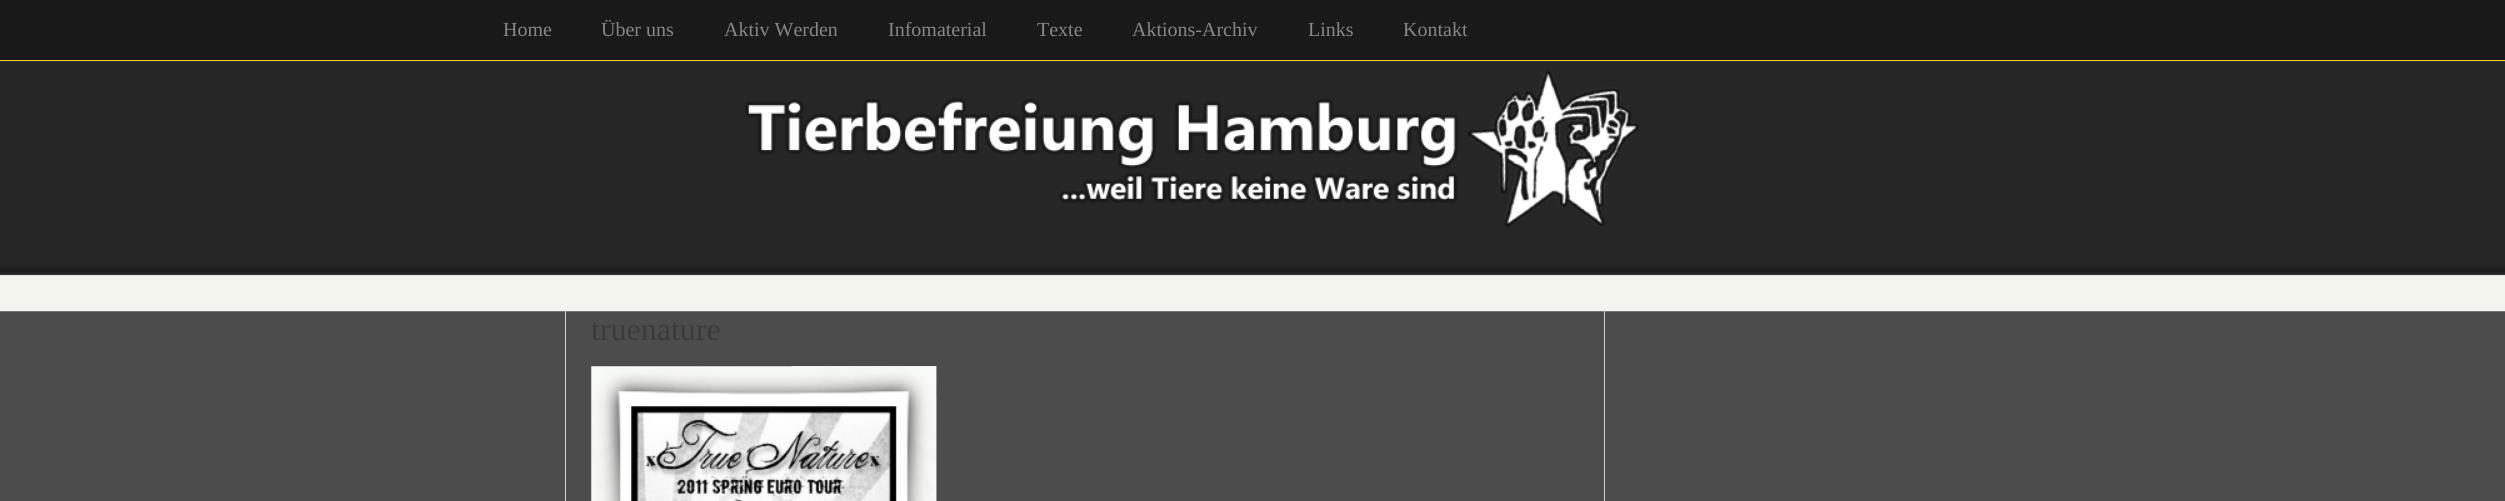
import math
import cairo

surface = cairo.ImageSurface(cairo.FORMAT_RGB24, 2505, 501)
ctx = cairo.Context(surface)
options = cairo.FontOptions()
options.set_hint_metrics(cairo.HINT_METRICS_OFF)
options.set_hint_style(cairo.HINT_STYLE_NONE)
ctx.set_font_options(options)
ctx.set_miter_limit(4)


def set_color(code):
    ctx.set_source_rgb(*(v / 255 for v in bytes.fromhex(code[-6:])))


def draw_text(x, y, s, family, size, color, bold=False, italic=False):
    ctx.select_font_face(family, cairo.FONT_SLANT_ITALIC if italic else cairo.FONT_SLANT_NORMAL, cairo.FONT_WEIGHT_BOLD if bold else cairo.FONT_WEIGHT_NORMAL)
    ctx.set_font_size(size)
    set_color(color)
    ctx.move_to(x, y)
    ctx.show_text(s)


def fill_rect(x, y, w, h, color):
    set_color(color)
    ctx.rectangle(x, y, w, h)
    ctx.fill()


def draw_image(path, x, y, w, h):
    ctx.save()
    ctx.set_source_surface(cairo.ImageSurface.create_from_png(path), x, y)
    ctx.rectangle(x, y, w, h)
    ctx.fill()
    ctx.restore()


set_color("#4c4c4c")
ctx.paint()
fill_rect(0, 0, 2505, 60, "#191919")
fill_rect(0, 60, 2505, 1, "#ebd220")
draw_text(503, 36, "Home", "Liberation Serif", 20, "#868686")
draw_text(601, 36, "Über uns", "Liberation Serif", 20, "#868686")
draw_text(724, 36, "Aktiv Werden", "Liberation Serif", 20, "#868686")
draw_text(888, 36, "Infomaterial", "Liberation Serif", 20, "#868686")
draw_text(1037, 36, "Texte", "Liberation Serif", 20, "#868686")
draw_text(1132, 36, "Aktions-Archiv", "Liberation Serif", 20, "#868686")
draw_text(1308, 36, "Links", "Liberation Serif", 20, "#868686")
draw_text(1403, 36, "Kontakt", "Liberation Serif", 20, "#868686")
draw_image("assets/img1.png", 0, 61, 2505, 251)
draw_image("assets/img2.png", 745, 70, 894, 158)
fill_rect(1604, 311, 1, 190, "#d3d3d3")
fill_rect(565, 311, 1, 190, "#d3d3d3")
draw_text(591, 340, "truenature", "Liberation Serif", 32, "#3b3b3b")
draw_image("assets/img3.png", 591, 366, 346, 135)
draw_image("assets/img4.png", 791, 366, 146, 135)
draw_image("assets/img5.png", 631, 406, 266, 95)
surface.write_to_png("output.png")
